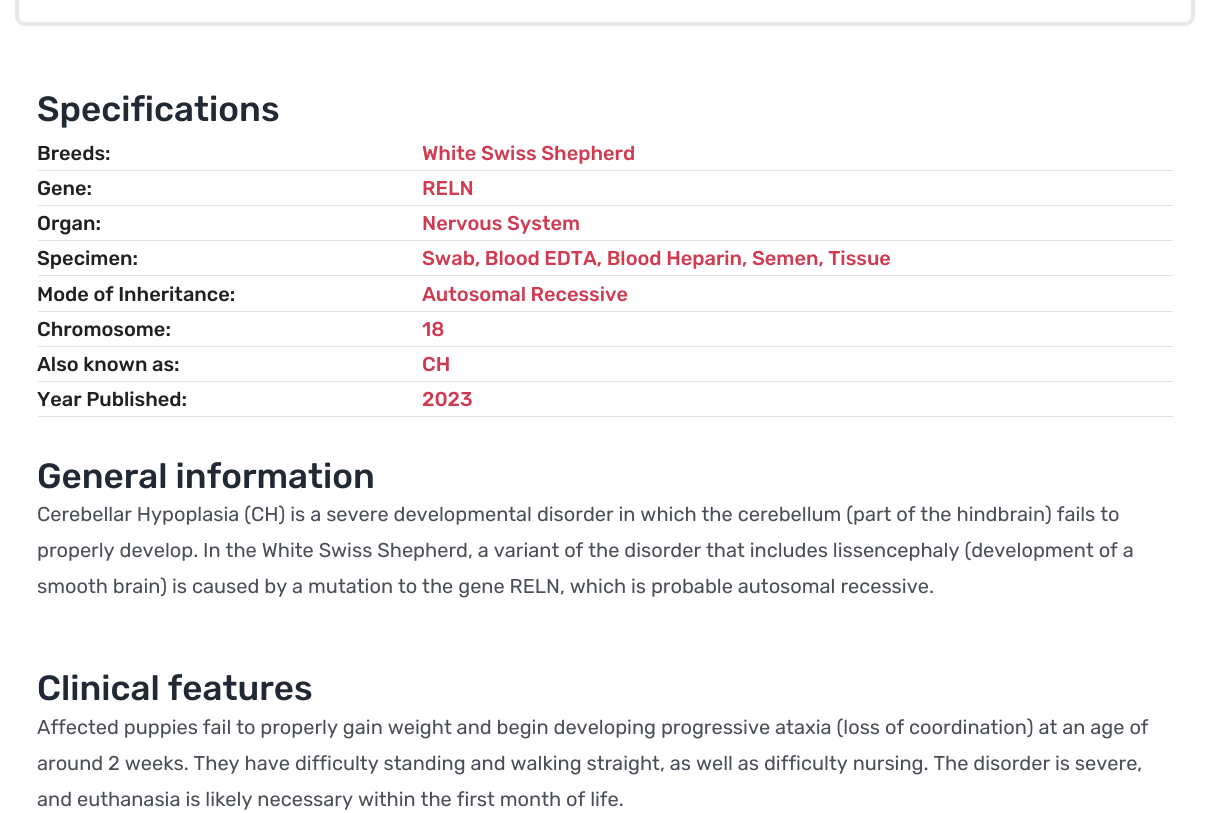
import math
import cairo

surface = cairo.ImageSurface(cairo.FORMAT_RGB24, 1210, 813)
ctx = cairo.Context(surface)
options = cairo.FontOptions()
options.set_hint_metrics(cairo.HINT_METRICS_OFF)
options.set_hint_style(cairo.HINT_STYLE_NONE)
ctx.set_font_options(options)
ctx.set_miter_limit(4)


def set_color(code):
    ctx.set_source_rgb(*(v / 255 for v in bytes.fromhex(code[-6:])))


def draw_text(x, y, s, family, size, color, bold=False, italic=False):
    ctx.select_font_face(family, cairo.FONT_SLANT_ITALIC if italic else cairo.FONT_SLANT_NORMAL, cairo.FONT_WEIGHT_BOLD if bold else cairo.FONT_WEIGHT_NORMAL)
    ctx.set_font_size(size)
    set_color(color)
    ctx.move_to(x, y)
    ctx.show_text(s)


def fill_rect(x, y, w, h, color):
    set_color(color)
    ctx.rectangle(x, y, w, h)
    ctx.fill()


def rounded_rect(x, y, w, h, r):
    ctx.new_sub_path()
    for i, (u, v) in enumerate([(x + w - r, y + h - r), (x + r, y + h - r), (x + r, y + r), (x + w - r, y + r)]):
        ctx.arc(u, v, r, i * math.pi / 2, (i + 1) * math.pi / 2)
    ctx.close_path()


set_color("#ffffff")
ctx.paint()
rounded_rect(17, -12, 1176, 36, 8)
set_color("#e8e8e8")
ctx.set_line_width(4)
ctx.stroke()
draw_text(37, 121, "Specifications", "Rubik Medium", 35, "#212934")
fill_rect(38, 170, 1135, 1, "#e2e2e2")
draw_text(37, 160, "Breeds:", "Rubik Medium", 20, "#202020")
draw_text(422, 160, "White Swiss Shepherd", "Rubik Medium", 20, "#d13b51")
fill_rect(38, 205, 1135, 1, "#e2e2e2")
draw_text(37, 195, "Gene:", "Rubik Medium", 20, "#202020")
draw_text(422, 195, "RELN", "Rubik Medium", 20, "#d13b51")
fill_rect(38, 240, 1135, 1, "#e2e2e2")
draw_text(37, 230, "Organ:", "Rubik Medium", 20, "#202020")
draw_text(422, 230, "Nervous System", "Rubik Medium", 20, "#d13b51")
fill_rect(38, 275, 1135, 1, "#e2e2e2")
draw_text(37, 265, "Specimen:", "Rubik Medium", 20, "#202020")
draw_text(422, 265, "Swab, Blood EDTA, Blood Heparin, Semen, Tissue", "Rubik Medium", 20, "#d13b51")
fill_rect(38, 311, 1135, 1, "#e2e2e2")
draw_text(37, 301, "Mode of Inheritance:", "Rubik Medium", 20, "#202020")
draw_text(422, 301, "Autosomal Recessive", "Rubik Medium", 20, "#d13b51")
fill_rect(38, 346, 1135, 1, "#e2e2e2")
draw_text(37, 336, "Chromosome:", "Rubik Medium", 20, "#202020")
draw_text(422, 336, "18", "Rubik Medium", 20, "#d13b51")
fill_rect(38, 381, 1135, 1, "#e2e2e2")
draw_text(37, 371, "Also known as:", "Rubik Medium", 20, "#202020")
draw_text(422, 371, "CH", "Rubik Medium", 20, "#d13b51")
fill_rect(38, 416, 1135, 1, "#e0e0e0")
draw_text(37, 406, "Year Published:", "Rubik Medium", 20, "#202020")
draw_text(422, 406, "2023", "Rubik Medium", 20, "#d13b51")
draw_text(37, 488, "General information", "Rubik Medium", 35, "#212934")
draw_text(37, 521, "Cerebellar Hypoplasia (CH) is a severe developmental disorder in which the cerebellum (part of the hindbrain) fails to", "Rubik", 20, "#4a4e57")
draw_text(37, 557, "properly develop. In the White Swiss Shepherd, a variant of the disorder that includes lissencephaly (development of a", "Rubik", 20, "#4a4e57")
draw_text(37, 593, "smooth brain) is caused by a mutation to the gene RELN, which is probable autosomal recessive.", "Rubik", 20, "#4a4e57")
draw_text(37, 700, "Clinical features", "Rubik Medium", 35, "#212934")
draw_text(37, 734, "Affected puppies fail to properly gain weight and begin developing progressive ataxia (loss of coordination) at an age of", "Rubik", 20, "#4a4e57")
draw_text(37, 770, "around 2 weeks. They have difficulty standing and walking straight, as well as difficulty nursing. The disorder is severe,", "Rubik", 20, "#4a4e57")
draw_text(37, 806, "and euthanasia is likely necessary within the first month of life.", "Rubik", 20, "#4a4e57")
surface.write_to_png("output.png")
